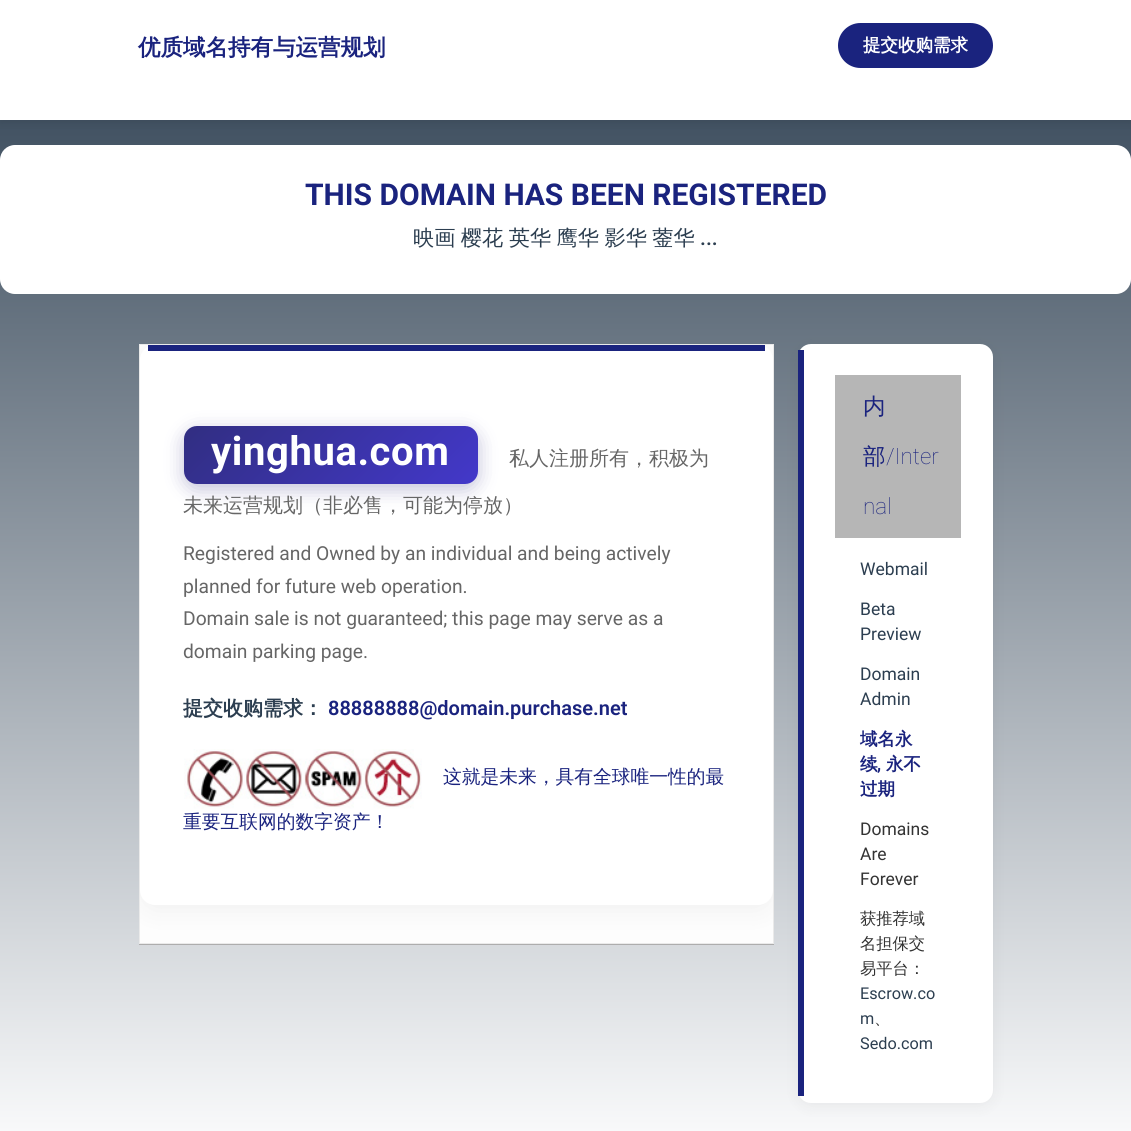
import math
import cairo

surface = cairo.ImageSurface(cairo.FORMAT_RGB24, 1131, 1131)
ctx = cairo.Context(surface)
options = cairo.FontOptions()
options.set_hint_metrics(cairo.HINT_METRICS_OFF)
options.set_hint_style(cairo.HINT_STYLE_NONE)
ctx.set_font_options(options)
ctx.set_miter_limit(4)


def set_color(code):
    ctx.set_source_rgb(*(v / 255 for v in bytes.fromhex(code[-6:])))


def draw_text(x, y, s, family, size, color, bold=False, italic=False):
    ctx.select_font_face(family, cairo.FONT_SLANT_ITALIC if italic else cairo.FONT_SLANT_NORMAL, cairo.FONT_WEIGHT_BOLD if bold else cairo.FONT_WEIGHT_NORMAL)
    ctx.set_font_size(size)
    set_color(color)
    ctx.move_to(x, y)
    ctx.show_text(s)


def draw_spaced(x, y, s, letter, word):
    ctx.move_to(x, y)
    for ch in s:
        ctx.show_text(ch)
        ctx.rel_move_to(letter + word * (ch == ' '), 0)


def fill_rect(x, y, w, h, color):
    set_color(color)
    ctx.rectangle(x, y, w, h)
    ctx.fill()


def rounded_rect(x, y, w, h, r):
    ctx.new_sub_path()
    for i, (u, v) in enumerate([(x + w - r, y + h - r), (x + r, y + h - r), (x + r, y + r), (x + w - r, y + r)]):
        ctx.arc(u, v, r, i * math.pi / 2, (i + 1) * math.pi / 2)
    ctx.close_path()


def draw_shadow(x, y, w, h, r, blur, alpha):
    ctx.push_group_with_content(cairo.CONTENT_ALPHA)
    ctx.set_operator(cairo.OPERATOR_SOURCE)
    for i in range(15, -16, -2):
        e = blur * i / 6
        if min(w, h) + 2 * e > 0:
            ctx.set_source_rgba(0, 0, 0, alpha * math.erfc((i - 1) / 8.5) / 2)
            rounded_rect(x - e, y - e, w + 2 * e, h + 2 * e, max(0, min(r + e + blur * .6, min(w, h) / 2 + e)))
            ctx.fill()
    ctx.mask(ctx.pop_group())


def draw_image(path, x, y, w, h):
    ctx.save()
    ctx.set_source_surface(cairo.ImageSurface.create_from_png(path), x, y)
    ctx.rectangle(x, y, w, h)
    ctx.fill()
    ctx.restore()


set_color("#ffffff")
ctx.paint()
gradient = cairo.LinearGradient(566, 0, 566, 1131)
gradient.add_color_stop_rgba(0, 0.173, 0.243, 0.314, 1)
gradient.add_color_stop_rgba(1, 0.973, 0.976, 0.98, 1)
ctx.set_source(gradient)
ctx.rectangle(0, 120, 1131, 1011)
ctx.fill()
set_color("#000000")
draw_shadow(0, 3, 1131, 120, 0, 5, 0.08)
fill_rect(0, 0, 1131, 120, "#ffffff")
draw_text(138, 55, "优质域名持有与运营规划", "WenQuanYi Zen Hei", 22.5, "#1a237e", bold=True)
rounded_rect(838, 23, 155, 45, 22.5)
ctx.fill()
draw_text(863, 51, "提交收购需求", "WenQuanYi Zen Hei", 17.5, "#ffffff", bold=True)
rounded_rect(0, 145, 1131, 149, 15)
ctx.fill()
draw_text(305, 205, "THIS DOMAIN HAS BEEN REGISTERED", "Roboto", 30, "#1a237e", bold=True)
ctx.select_font_face("WenQuanYi Zen Hei Medium")
ctx.set_font_size(21.25)
set_color("#2c3e50")
draw_spaced(413, 245, "映画 樱花 英华 鹰华 影华 蓥华", 0, -1)
draw_text(700, 245, "...", "Roboto Medium", 21.25, "#2c3e50")
set_color("#adadad")
ctx.new_path()
ctx.move_to(139, 944)
ctx.line_to(139, 945)
ctx.line_to(774, 945)
ctx.line_to(774, 345)
ctx.line_to(774, 944)
ctx.close_path()
ctx.fill()
set_color("#fdfdfd")
ctx.rectangle(139.5, 344.5, 634, 599)
ctx.fill_preserve()
set_color("#eaeaea")
ctx.set_line_width(1)
ctx.stroke()
ctx.save()
ctx.rectangle(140, 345, 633, 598)
ctx.clip()
set_color("#000000")
draw_shadow(140, 351, 633, 560, 15, 12.5, 0.05)
ctx.restore()
set_color("#ffffff")
rounded_rect(140, 345, 633, 560, 15)
ctx.fill()
fill_rect(148, 345, 617, 6, "#1a237e")
set_color("#312e81")
draw_shadow(184, 431, 294, 58, 13, 9.5, 0.3)
gradient = cairo.LinearGradient(243, 367, 418, 543)
gradient.add_color_stop_rgba(0, 0.192, 0.18, 0.506, 1)
gradient.add_color_stop_rgba(1, 0.263, 0.22, 0.792, 1)
ctx.set_source(gradient)
rounded_rect(184, 426, 294, 58, 13)
ctx.fill()
ctx.select_font_face("Roboto", cairo.FONT_SLANT_NORMAL, cairo.FONT_WEIGHT_BOLD)
ctx.set_font_size(40)
set_color("#ffffff")
draw_spaced(211, 465, "yinghua.com", 0.6, 0)
draw_text(509, 465, "私人注册所有，积极为", "WenQuanYi Zen Hei Medium", 20, "#666666")
draw_text(183, 512, "未来运营规划（非必售，可能为停放）", "WenQuanYi Zen Hei Medium", 20, "#666666")
draw_text(183, 560, "Registered and Owned by an individual and being actively", "Roboto", 19.25, "#666666")
draw_text(183, 593, "planned for future web operation.", "Roboto", 19.25, "#666666")
draw_text(183, 625, "Domain sale is not guaranteed; this page may serve as a", "Roboto", 19.25, "#666666")
draw_text(183, 658, "domain parking page.", "Roboto", 19.25, "#666666")
draw_text(183, 715, "提交收购需求：", "WenQuanYi Zen Hei", 20, "#2c3e50", bold=True)
draw_text(328, 715, "88888888@domain.purchase.net", "Roboto SemiBold", 20, "#1a237e")
draw_image("assets/img1.png", 184, 749, 238, 60)
draw_text(443, 783, "这就是未来，具有全球唯一性的最", "WenQuanYi Zen Hei Medium", 18.75, "#1a237e")
draw_text(183, 828, "重要互联网的数字资产！", "WenQuanYi Zen Hei Medium", 18.75, "#1a237e")
set_color("#000000")
draw_shadow(798, 348, 195, 758, 13, 7.5, 0.05)
set_color("#ffffff")
rounded_rect(798, 344, 195, 759, 13)
ctx.fill()
fill_rect(798, 350, 6, 746, "#1a237e")
fill_rect(835, 375, 126, 163, "#b6b6b6")
draw_text(863, 414, "内", "WenQuanYi Zen Hei Medium", 22.5, "#1a237e")
draw_text(863, 464, "部", "WenQuanYi Zen Hei Medium", 22.5, "#1a237e")
draw_text(886, 464, "/Inter", "Roboto Thin", 22.5, "#1a237e")
draw_text(863, 514, "nal", "Roboto Thin", 22.5, "#1a237e")
draw_text(860, 575, "Webmail", "Roboto", 17.5, "#2c3e50")
draw_text(860, 615, "Beta", "Roboto", 17.5, "#2c3e50")
draw_text(860, 640, "Preview", "Roboto", 17.5, "#2c3e50")
draw_text(860, 680, "Domain", "Roboto", 17.5, "#2c3e50")
draw_text(860, 705, "Admin", "Roboto", 17.5, "#2c3e50")
draw_text(860, 745, "域名永", "WenQuanYi Zen Hei", 17.5, "#1a237e", bold=True)
draw_text(860, 770, "续", "WenQuanYi Zen Hei", 17.5, "#1a237e", bold=True)
draw_text(877, 770, ",", "Roboto SemiBold", 17.5, "#1a237e")
draw_text(886, 770, "永不", "WenQuanYi Zen Hei", 17.5, "#1a237e", bold=True)
draw_text(860, 795, "过期", "WenQuanYi Zen Hei", 17.5, "#1a237e", bold=True)
draw_text(860, 835, "Domains", "Roboto", 17.5, "#333333")
draw_text(860, 860, "Are", "Roboto", 17.5, "#333333")
draw_text(860, 885, "Forever", "Roboto", 17.5, "#333333")
draw_text(860, 924, "获推荐域", "WenQuanYi Zen Hei Medium", 16.25, "#333333")
draw_text(860, 949, "名担保交", "WenQuanYi Zen Hei Medium", 16.25, "#333333")
draw_text(860, 974, "易平台：", "WenQuanYi Zen Hei Medium", 16.25, "#333333")
draw_text(860, 999, "Escrow.co", "Roboto", 16.25, "#2c3e50")
draw_text(860, 1024, "m", "Roboto", 16.25, "#2c3e50")
draw_text(874, 1024, "、", "WenQuanYi Zen Hei Medium", 16.25, "#333333")
draw_text(860, 1049, "Sedo.com", "Roboto", 16.25, "#2c3e50")
surface.write_to_png("output.png")
